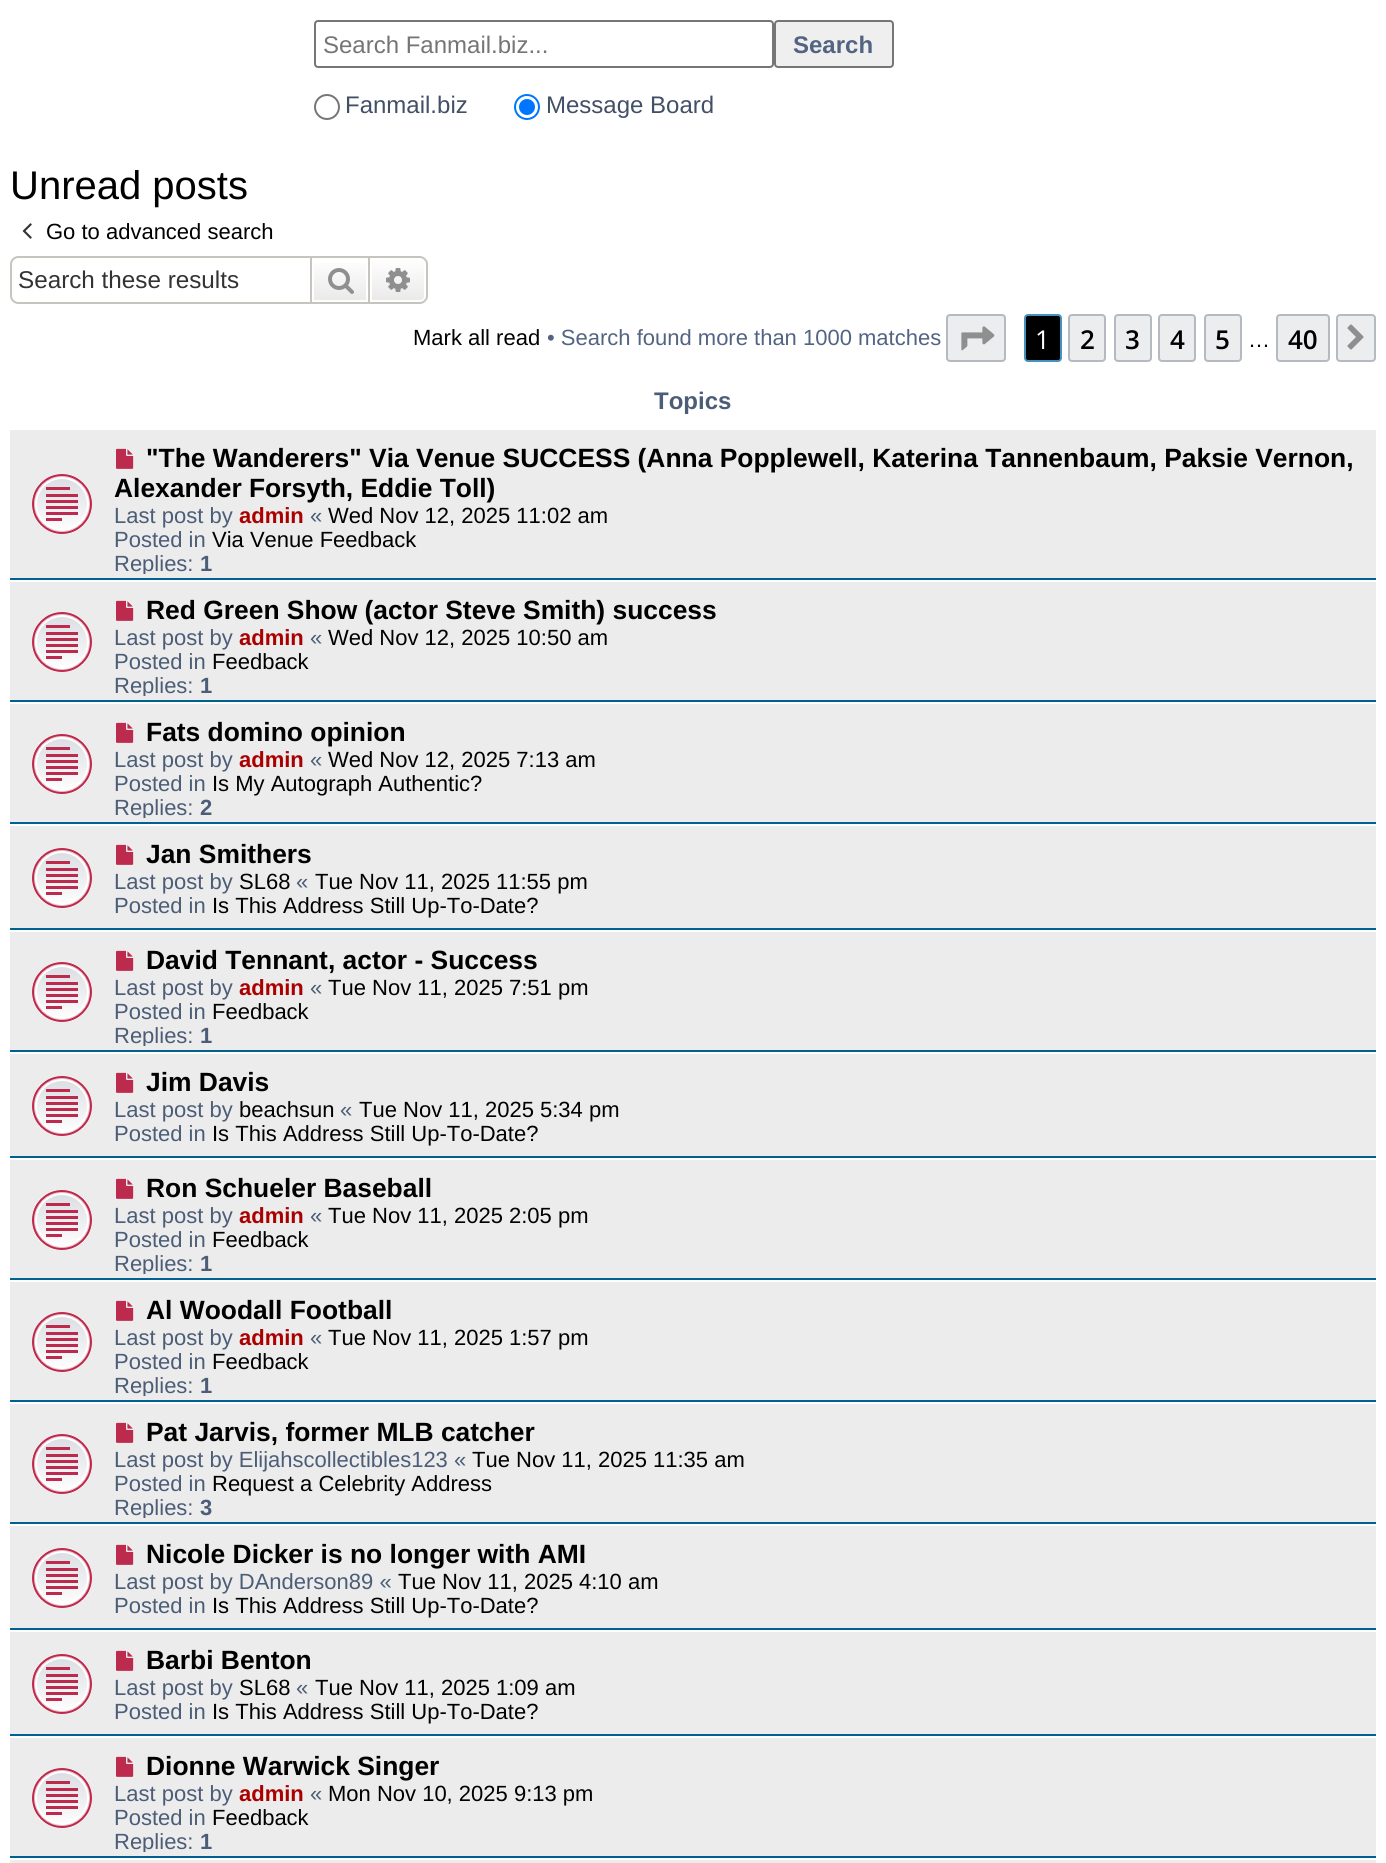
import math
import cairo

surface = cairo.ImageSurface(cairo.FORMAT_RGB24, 1386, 1863)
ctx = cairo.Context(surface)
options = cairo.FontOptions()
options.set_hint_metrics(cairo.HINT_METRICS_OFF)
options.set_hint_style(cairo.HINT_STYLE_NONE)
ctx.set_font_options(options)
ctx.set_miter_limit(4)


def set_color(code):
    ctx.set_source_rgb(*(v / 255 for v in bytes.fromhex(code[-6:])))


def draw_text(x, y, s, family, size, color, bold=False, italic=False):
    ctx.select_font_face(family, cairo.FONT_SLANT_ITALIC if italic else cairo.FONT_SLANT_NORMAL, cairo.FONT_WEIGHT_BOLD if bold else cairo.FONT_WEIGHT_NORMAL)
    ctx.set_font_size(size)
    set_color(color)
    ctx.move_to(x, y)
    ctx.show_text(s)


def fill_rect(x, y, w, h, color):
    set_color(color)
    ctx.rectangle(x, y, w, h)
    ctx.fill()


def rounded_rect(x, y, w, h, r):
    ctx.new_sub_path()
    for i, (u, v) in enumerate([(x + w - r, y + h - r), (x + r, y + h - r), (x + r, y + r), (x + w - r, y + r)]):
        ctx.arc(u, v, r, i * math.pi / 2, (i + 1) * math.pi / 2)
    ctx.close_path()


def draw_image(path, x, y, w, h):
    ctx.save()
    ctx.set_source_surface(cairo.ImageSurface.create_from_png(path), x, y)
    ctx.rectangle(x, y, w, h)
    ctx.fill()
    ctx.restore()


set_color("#ffffff")
ctx.paint()
rounded_rect(315, 21, 458, 46, 3)
set_color("#767676")
ctx.stroke()
draw_text(323, 53, "Search Fanmail.biz...", "Liberation Sans", 24, "#757575")
set_color("#efefef")
rounded_rect(775, 21, 118, 46, 3)
ctx.fill_preserve()
set_color("#767676")
ctx.stroke()
draw_text(793, 53, "Search", "Liberation Sans", 24, "#536482", bold=True)
ctx.new_path()
ctx.arc(327, 107, 12, 0, 2 * math.pi)
set_color("#767676")
ctx.stroke()
draw_text(345, 113, "Fanmail.biz", "Liberation Sans", 24, "#425067")
ctx.new_path()
ctx.arc(527, 107, 12, 0, 2 * math.pi)
set_color("#0075ff")
ctx.stroke()
ctx.arc(527, 107, 8, 0, 2 * math.pi)
ctx.fill()
draw_text(546, 113, "Message Board", "Liberation Sans", 24, "#425067")
draw_text(10, 199, "Unread posts", "Liberation Sans", 40, "#000000")
draw_image("assets/img1.png", 22, 223, 10, 16)
draw_text(46, 239, "Go to advanced search", "Liberation Sans", 22, "#000000")
set_color("#c7c3bf")
ctx.set_fill_rule(cairo.FILL_RULE_EVEN_ODD)
ctx.new_path()
ctx.move_to(18, 256)
ctx.line_to(310, 256)
ctx.line_to(310, 304)
ctx.line_to(18, 304)
ctx.curve_to(14, 304, 10, 300, 10, 296)
ctx.line_to(10, 264)
ctx.curve_to(10, 260, 14, 256, 18, 256)
ctx.close_path()
ctx.move_to(18, 258)
ctx.line_to(310, 258)
ctx.line_to(310, 302)
ctx.line_to(18, 302)
ctx.curve_to(15, 302, 12, 299, 12, 296)
ctx.line_to(12, 264)
ctx.curve_to(12, 261, 15, 258, 18, 258)
ctx.close_path()
ctx.fill()
draw_text(18, 288, "Search these results", "Liberation Sans", 24.25, "#333333")
gradient = cairo.LinearGradient(340, 258, 340, 302)
gradient.add_color_stop_rgba(0, 1, 1, 1, 1)
gradient.add_color_stop_rgba(1, 0.914, 0.914, 0.914, 1)
ctx.set_source(gradient)
ctx.rectangle(314, 263, 52, 37)
ctx.fill()
ctx.rectangle(311, 257, 58, 46)
set_color("#c7c3bf")
ctx.stroke()
draw_image("assets/img2.png", 328, 268, 26, 26)
gradient = cairo.LinearGradient(398, 258, 398, 302)
gradient.add_color_stop_rgba(0, 1, 1, 1, 1)
gradient.add_color_stop_rgba(1, 0.914, 0.914, 0.914, 1)
ctx.set_source(gradient)
ctx.new_path()
ctx.move_to(371, 259)
ctx.line_to(420, 259)
ctx.curve_to(423, 259, 425, 261, 425, 264)
ctx.line_to(425, 296)
ctx.curve_to(425, 299, 423, 301, 420, 301)
ctx.line_to(371, 301)
ctx.close_path()
ctx.fill_preserve()
set_color("#ffffff")
ctx.stroke()
set_color("#c7c3bf")
ctx.new_path()
ctx.move_to(370, 256)
ctx.line_to(420, 256)
ctx.curve_to(424, 256, 428, 260, 428, 264)
ctx.line_to(428, 296)
ctx.curve_to(428, 300, 424, 304, 420, 304)
ctx.line_to(370, 304)
ctx.close_path()
ctx.move_to(370, 258)
ctx.line_to(420, 258)
ctx.curve_to(423, 258, 426, 261, 426, 264)
ctx.line_to(426, 296)
ctx.curve_to(426, 299, 423, 302, 420, 302)
ctx.line_to(370, 302)
ctx.close_path()
ctx.fill()
draw_image("assets/img3.png", 386, 268, 24, 24)
draw_text(413, 345, "Mark all read", "Liberation Sans", 22, "#000000")
draw_text(547, 345, "• Search found more than 1000 matches", "Liberation Sans", 22, "#536482")
set_color("#ecedee")
rounded_rect(947, 315, 58, 46, 3)
ctx.fill_preserve()
set_color("#b4bac0")
ctx.stroke()
draw_image("assets/img4.png", 961, 326, 34, 25)
set_color("#000000")
rounded_rect(1025, 315, 36, 46, 3)
ctx.fill_preserve()
set_color("#4692bf")
ctx.stroke()
draw_text(1035, 349, "1", "Open Sans", 26, "#ffffff")
set_color("#ecedee")
rounded_rect(1069, 315, 36, 46, 3)
ctx.fill_preserve()
set_color("#b4bac0")
ctx.stroke()
draw_text(1080, 349, "2", "Open Sans SemiBold", 26, "#000000")
set_color("#ecedee")
rounded_rect(1115, 315, 36, 46, 3)
ctx.fill_preserve()
set_color("#b4bac0")
ctx.stroke()
draw_text(1125, 349, "3", "Open Sans SemiBold", 26, "#000000")
set_color("#ecedee")
rounded_rect(1159, 315, 36, 46, 3)
ctx.fill_preserve()
set_color("#b4bac0")
ctx.stroke()
draw_text(1170, 349, "4", "Open Sans SemiBold", 26, "#000000")
set_color("#ecedee")
rounded_rect(1205, 315, 36, 46, 3)
ctx.fill_preserve()
set_color("#b4bac0")
ctx.stroke()
draw_text(1215, 349, "5", "Open Sans SemiBold", 26, "#000000")
draw_text(1248, 347, "…", "Liberation Sans", 22, "#000000")
set_color("#ecedee")
rounded_rect(1277, 315, 52, 46, 3)
ctx.fill_preserve()
set_color("#b4bac0")
ctx.stroke()
draw_text(1288, 349, "40", "Open Sans SemiBold", 26, "#000000")
set_color("#ecedee")
rounded_rect(1337, 315, 38, 46, 3)
ctx.fill_preserve()
set_color("#b4bac0")
ctx.stroke()
draw_image("assets/img5.png", 1347, 324, 17, 26)
draw_text(654, 409, "Topics", "Liberation Sans", 24, "#4c5d77", bold=True)
fill_rect(10, 430, 1366, 148, "#ececec")
fill_rect(10, 578, 1366, 2, "#00608f")
draw_image("assets/img6.png", 32, 474, 60, 60)
draw_image("assets/img7.png", 116, 448, 18, 21)
draw_text(146, 467, "\"The Wanderers\" Via Venue SUCCESS (Anna Popplewell, Katerina Tannenbaum, Paksie Vernon,", "Liberation Sans", 26.4, "#000000", bold=True)
draw_text(114, 497, "Alexander Forsyth, Eddie Toll)", "Liberation Sans", 26.4, "#000000", bold=True)
draw_text(114, 523, "Last post by", "Liberation Sans", 22, "#4c5d77")
draw_text(239, 523, "admin", "Liberation Sans", 22, "#aa0000", bold=True)
draw_text(310, 523, "«", "Liberation Sans", 22, "#4c5d77")
draw_text(328, 523, "Wed Nov 12, 2025 11:02 am", "Liberation Sans", 22, "#000000")
draw_text(114, 547, "Posted in", "Liberation Sans", 22, "#4c5d77")
draw_text(212, 547, "Via Venue Feedback", "Liberation Sans", 22, "#000000")
ctx.save()
ctx.set_fill_rule(cairo.FILL_RULE_WINDING)
ctx.rectangle(10, 434, 1366, 140)
ctx.clip()
draw_text(114, 571, "Replies:", "Liberation Sans", 22, "#4c5d77")
ctx.restore()
draw_text(200, 571, "1", "Liberation Sans", 22, "#4c5d77", bold=True)
fill_rect(10, 582, 1366, 118, "#ececec")
fill_rect(10, 700, 1366, 2, "#00608f")
draw_image("assets/img6.png", 32, 612, 60, 60)
draw_image("assets/img7.png", 116, 600, 18, 21)
draw_text(146, 619, "Red Green Show (actor Steve Smith) success", "Liberation Sans", 26.4, "#000000", bold=True)
draw_text(114, 645, "Last post by", "Liberation Sans", 22, "#4c5d77")
draw_text(239, 645, "admin", "Liberation Sans", 22, "#aa0000", bold=True)
draw_text(310, 645, "«", "Liberation Sans", 22, "#4c5d77")
draw_text(328, 645, "Wed Nov 12, 2025 10:50 am", "Liberation Sans", 22, "#000000")
draw_text(114, 669, "Posted in", "Liberation Sans", 22, "#4c5d77")
draw_text(212, 669, "Feedback", "Liberation Sans", 22, "#000000")
ctx.save()
ctx.set_fill_rule(cairo.FILL_RULE_WINDING)
ctx.rectangle(10, 586, 1366, 110)
ctx.clip()
draw_text(114, 693, "Replies:", "Liberation Sans", 22, "#4c5d77")
ctx.restore()
draw_text(200, 693, "1", "Liberation Sans", 22, "#4c5d77", bold=True)
fill_rect(10, 704, 1366, 118, "#ececec")
fill_rect(10, 822, 1366, 2, "#00608f")
draw_image("assets/img6.png", 32, 734, 60, 60)
draw_image("assets/img7.png", 116, 722, 18, 21)
draw_text(146, 741, "Fats domino opinion", "Liberation Sans", 26.4, "#000000", bold=True)
draw_text(114, 767, "Last post by", "Liberation Sans", 22, "#4c5d77")
draw_text(239, 767, "admin", "Liberation Sans", 22, "#aa0000", bold=True)
draw_text(310, 767, "«", "Liberation Sans", 22, "#4c5d77")
draw_text(328, 767, "Wed Nov 12, 2025 7:13 am", "Liberation Sans", 22, "#000000")
draw_text(114, 791, "Posted in", "Liberation Sans", 22, "#4c5d77")
draw_text(212, 791, "Is My Autograph Authentic?", "Liberation Sans", 22, "#000000")
ctx.save()
ctx.set_fill_rule(cairo.FILL_RULE_WINDING)
ctx.rectangle(10, 708, 1366, 110)
ctx.clip()
draw_text(114, 815, "Replies:", "Liberation Sans", 22, "#4c5d77")
ctx.restore()
draw_text(200, 815, "2", "Liberation Sans", 22, "#4c5d77", bold=True)
fill_rect(10, 826, 1366, 102, "#ececec")
fill_rect(10, 928, 1366, 2, "#00608f")
draw_image("assets/img6.png", 32, 848, 60, 60)
draw_image("assets/img7.png", 116, 844, 18, 21)
draw_text(146, 863, "Jan Smithers", "Liberation Sans", 26.4, "#000000", bold=True)
draw_text(114, 889, "Last post by", "Liberation Sans", 22, "#4c5d77")
draw_text(239, 889, "SL68", "Liberation Sans", 22, "#000000")
draw_text(296, 889, "«", "Liberation Sans", 22, "#4c5d77")
draw_text(315, 889, "Tue Nov 11, 2025 11:55 pm", "Liberation Sans", 22, "#000000")
draw_text(114, 913, "Posted in", "Liberation Sans", 22, "#4c5d77")
draw_text(212, 913, "Is This Address Still Up-To-Date?", "Liberation Sans", 22, "#000000")
fill_rect(10, 932, 1366, 118, "#ececec")
fill_rect(10, 1050, 1366, 2, "#00608f")
draw_image("assets/img6.png", 32, 962, 60, 60)
draw_image("assets/img7.png", 116, 950, 18, 21)
draw_text(146, 969, "David Tennant, actor - Success", "Liberation Sans", 26.4, "#000000", bold=True)
draw_text(114, 995, "Last post by", "Liberation Sans", 22, "#4c5d77")
draw_text(239, 995, "admin", "Liberation Sans", 22, "#aa0000", bold=True)
draw_text(310, 995, "«", "Liberation Sans", 22, "#4c5d77")
draw_text(328, 995, "Tue Nov 11, 2025 7:51 pm", "Liberation Sans", 22, "#000000")
draw_text(114, 1019, "Posted in", "Liberation Sans", 22, "#4c5d77")
draw_text(212, 1019, "Feedback", "Liberation Sans", 22, "#000000")
ctx.save()
ctx.set_fill_rule(cairo.FILL_RULE_WINDING)
ctx.rectangle(10, 936, 1366, 110)
ctx.clip()
draw_text(114, 1043, "Replies:", "Liberation Sans", 22, "#4c5d77")
ctx.restore()
draw_text(200, 1043, "1", "Liberation Sans", 22, "#4c5d77", bold=True)
fill_rect(10, 1054, 1366, 102, "#ececec")
fill_rect(10, 1156, 1366, 2, "#00608f")
draw_image("assets/img6.png", 32, 1076, 60, 60)
draw_image("assets/img7.png", 116, 1072, 18, 21)
draw_text(146, 1091, "Jim Davis", "Liberation Sans", 26.4, "#000000", bold=True)
draw_text(114, 1117, "Last post by", "Liberation Sans", 22, "#4c5d77")
draw_text(239, 1117, "beachsun", "Liberation Sans", 22, "#000000")
draw_text(340, 1117, "«", "Liberation Sans", 22, "#4c5d77")
draw_text(359, 1117, "Tue Nov 11, 2025 5:34 pm", "Liberation Sans", 22, "#000000")
draw_text(114, 1141, "Posted in", "Liberation Sans", 22, "#4c5d77")
draw_text(212, 1141, "Is This Address Still Up-To-Date?", "Liberation Sans", 22, "#000000")
fill_rect(10, 1160, 1366, 118, "#ececec")
fill_rect(10, 1278, 1366, 2, "#00608f")
draw_image("assets/img6.png", 32, 1190, 60, 60)
draw_image("assets/img7.png", 116, 1178, 18, 21)
draw_text(146, 1197, "Ron Schueler Baseball", "Liberation Sans", 26.4, "#000000", bold=True)
draw_text(114, 1223, "Last post by", "Liberation Sans", 22, "#4c5d77")
draw_text(239, 1223, "admin", "Liberation Sans", 22, "#aa0000", bold=True)
draw_text(310, 1223, "«", "Liberation Sans", 22, "#4c5d77")
draw_text(328, 1223, "Tue Nov 11, 2025 2:05 pm", "Liberation Sans", 22, "#000000")
draw_text(114, 1247, "Posted in", "Liberation Sans", 22, "#4c5d77")
draw_text(212, 1247, "Feedback", "Liberation Sans", 22, "#000000")
ctx.save()
ctx.set_fill_rule(cairo.FILL_RULE_WINDING)
ctx.rectangle(10, 1164, 1366, 110)
ctx.clip()
draw_text(114, 1271, "Replies:", "Liberation Sans", 22, "#4c5d77")
ctx.restore()
draw_text(200, 1271, "1", "Liberation Sans", 22, "#4c5d77", bold=True)
fill_rect(10, 1282, 1366, 118, "#ececec")
fill_rect(10, 1400, 1366, 2, "#00608f")
draw_image("assets/img6.png", 32, 1312, 60, 60)
draw_image("assets/img7.png", 116, 1300, 18, 21)
draw_text(146, 1319, "Al Woodall Football", "Liberation Sans", 26.4, "#000000", bold=True)
draw_text(114, 1345, "Last post by", "Liberation Sans", 22, "#4c5d77")
draw_text(239, 1345, "admin", "Liberation Sans", 22, "#aa0000", bold=True)
draw_text(310, 1345, "«", "Liberation Sans", 22, "#4c5d77")
draw_text(328, 1345, "Tue Nov 11, 2025 1:57 pm", "Liberation Sans", 22, "#000000")
draw_text(114, 1369, "Posted in", "Liberation Sans", 22, "#4c5d77")
draw_text(212, 1369, "Feedback", "Liberation Sans", 22, "#000000")
ctx.save()
ctx.set_fill_rule(cairo.FILL_RULE_WINDING)
ctx.rectangle(10, 1286, 1366, 110)
ctx.clip()
draw_text(114, 1393, "Replies:", "Liberation Sans", 22, "#4c5d77")
ctx.restore()
draw_text(200, 1393, "1", "Liberation Sans", 22, "#4c5d77", bold=True)
fill_rect(10, 1404, 1366, 118, "#ececec")
fill_rect(10, 1522, 1366, 2, "#00608f")
draw_image("assets/img6.png", 32, 1434, 60, 60)
draw_image("assets/img7.png", 116, 1422, 18, 21)
draw_text(146, 1441, "Pat Jarvis, former MLB catcher", "Liberation Sans", 26.4, "#000000", bold=True)
draw_text(114, 1467, "Last post by Elijahscollectibles123 «", "Liberation Sans", 22, "#4c5d77")
draw_text(472, 1467, "Tue Nov 11, 2025 11:35 am", "Liberation Sans", 22, "#000000")
draw_text(114, 1491, "Posted in", "Liberation Sans", 22, "#4c5d77")
draw_text(212, 1491, "Request a Celebrity Address", "Liberation Sans", 22, "#000000")
ctx.save()
ctx.set_fill_rule(cairo.FILL_RULE_WINDING)
ctx.rectangle(10, 1408, 1366, 110)
ctx.clip()
draw_text(114, 1515, "Replies:", "Liberation Sans", 22, "#4c5d77")
ctx.restore()
draw_text(200, 1515, "3", "Liberation Sans", 22, "#4c5d77", bold=True)
fill_rect(10, 1526, 1366, 102, "#ececec")
fill_rect(10, 1628, 1366, 2, "#00608f")
draw_image("assets/img6.png", 32, 1548, 60, 60)
draw_image("assets/img7.png", 116, 1544, 18, 21)
draw_text(146, 1563, "Nicole Dicker is no longer with AMI", "Liberation Sans", 26.4, "#000000", bold=True)
draw_text(114, 1589, "Last post by DAnderson89 «", "Liberation Sans", 22, "#4c5d77")
draw_text(398, 1589, "Tue Nov 11, 2025 4:10 am", "Liberation Sans", 22, "#000000")
draw_text(114, 1613, "Posted in", "Liberation Sans", 22, "#4c5d77")
draw_text(212, 1613, "Is This Address Still Up-To-Date?", "Liberation Sans", 22, "#000000")
fill_rect(10, 1632, 1366, 102, "#ececec")
fill_rect(10, 1734, 1366, 2, "#00608f")
draw_image("assets/img6.png", 32, 1654, 60, 60)
draw_image("assets/img7.png", 116, 1650, 18, 21)
draw_text(146, 1669, "Barbi Benton", "Liberation Sans", 26.4, "#000000", bold=True)
draw_text(114, 1695, "Last post by", "Liberation Sans", 22, "#4c5d77")
draw_text(239, 1695, "SL68", "Liberation Sans", 22, "#000000")
draw_text(296, 1695, "«", "Liberation Sans", 22, "#4c5d77")
draw_text(315, 1695, "Tue Nov 11, 2025 1:09 am", "Liberation Sans", 22, "#000000")
draw_text(114, 1719, "Posted in", "Liberation Sans", 22, "#4c5d77")
draw_text(212, 1719, "Is This Address Still Up-To-Date?", "Liberation Sans", 22, "#000000")
fill_rect(10, 1738, 1366, 118, "#ececec")
fill_rect(10, 1856, 1366, 2, "#00608f")
draw_image("assets/img6.png", 32, 1768, 60, 60)
draw_image("assets/img7.png", 116, 1756, 18, 21)
draw_text(146, 1775, "Dionne Warwick Singer", "Liberation Sans", 26.4, "#000000", bold=True)
draw_text(114, 1801, "Last post by", "Liberation Sans", 22, "#4c5d77")
draw_text(239, 1801, "admin", "Liberation Sans", 22, "#aa0000", bold=True)
draw_text(310, 1801, "«", "Liberation Sans", 22, "#4c5d77")
draw_text(328, 1801, "Mon Nov 10, 2025 9:13 pm", "Liberation Sans", 22, "#000000")
draw_text(114, 1825, "Posted in", "Liberation Sans", 22, "#4c5d77")
draw_text(212, 1825, "Feedback", "Liberation Sans", 22, "#000000")
ctx.save()
ctx.set_fill_rule(cairo.FILL_RULE_WINDING)
ctx.rectangle(10, 1742, 1366, 110)
ctx.clip()
draw_text(114, 1849, "Replies:", "Liberation Sans", 22, "#4c5d77")
ctx.restore()
draw_text(200, 1849, "1", "Liberation Sans", 22, "#4c5d77", bold=True)
fill_rect(10, 1860, 1366, 3, "#ececec")
surface.write_to_png("output.png")
